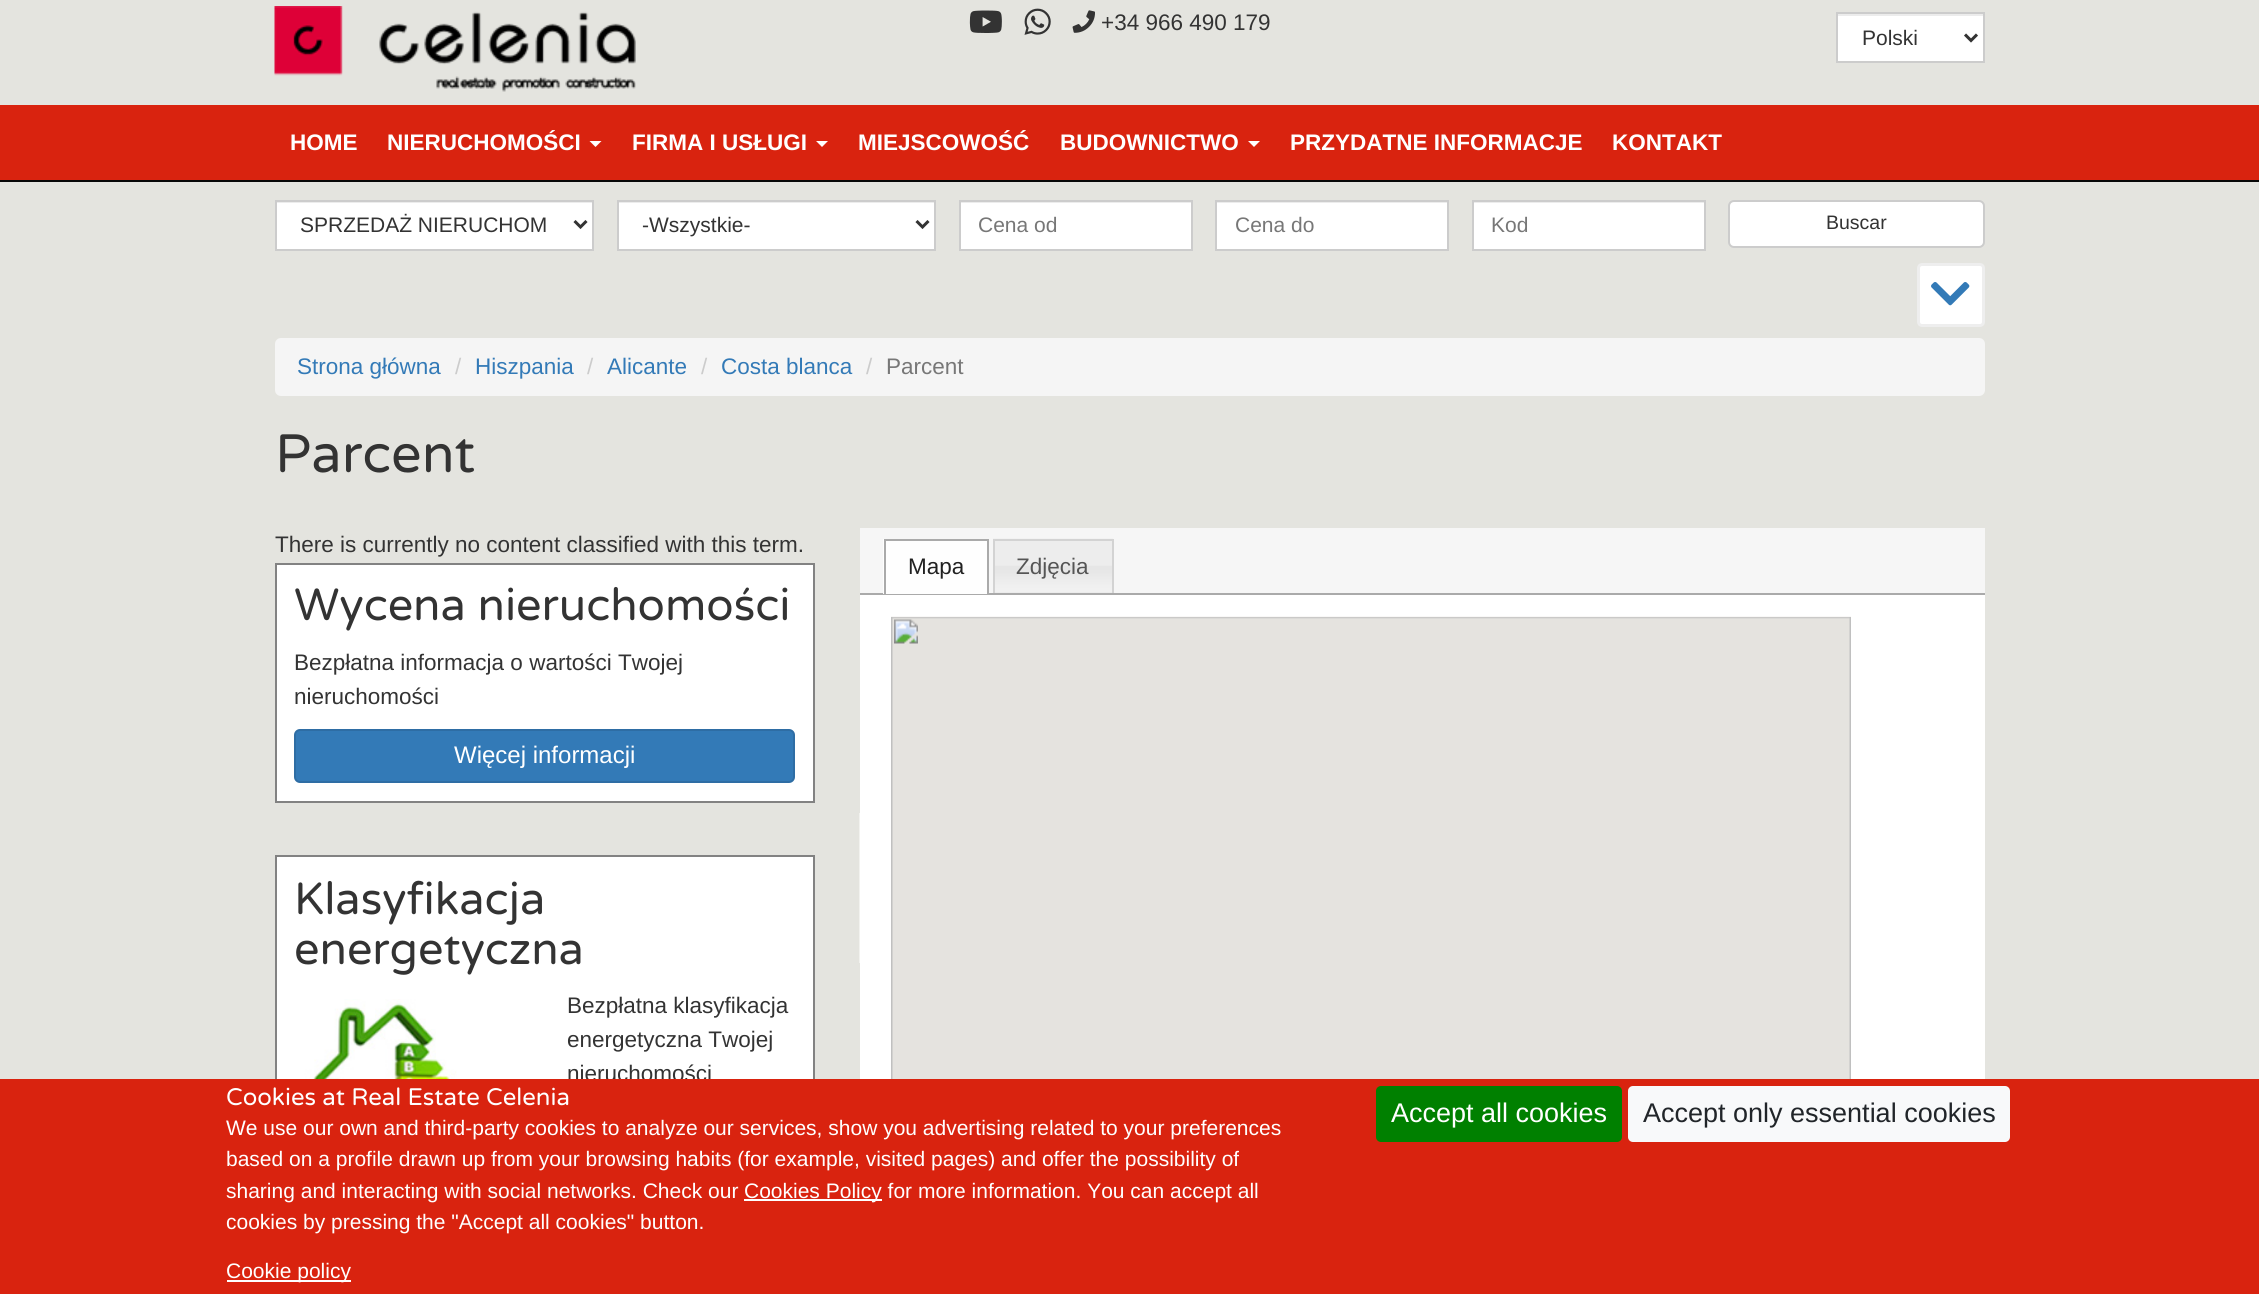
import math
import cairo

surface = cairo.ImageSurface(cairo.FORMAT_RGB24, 2259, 1294)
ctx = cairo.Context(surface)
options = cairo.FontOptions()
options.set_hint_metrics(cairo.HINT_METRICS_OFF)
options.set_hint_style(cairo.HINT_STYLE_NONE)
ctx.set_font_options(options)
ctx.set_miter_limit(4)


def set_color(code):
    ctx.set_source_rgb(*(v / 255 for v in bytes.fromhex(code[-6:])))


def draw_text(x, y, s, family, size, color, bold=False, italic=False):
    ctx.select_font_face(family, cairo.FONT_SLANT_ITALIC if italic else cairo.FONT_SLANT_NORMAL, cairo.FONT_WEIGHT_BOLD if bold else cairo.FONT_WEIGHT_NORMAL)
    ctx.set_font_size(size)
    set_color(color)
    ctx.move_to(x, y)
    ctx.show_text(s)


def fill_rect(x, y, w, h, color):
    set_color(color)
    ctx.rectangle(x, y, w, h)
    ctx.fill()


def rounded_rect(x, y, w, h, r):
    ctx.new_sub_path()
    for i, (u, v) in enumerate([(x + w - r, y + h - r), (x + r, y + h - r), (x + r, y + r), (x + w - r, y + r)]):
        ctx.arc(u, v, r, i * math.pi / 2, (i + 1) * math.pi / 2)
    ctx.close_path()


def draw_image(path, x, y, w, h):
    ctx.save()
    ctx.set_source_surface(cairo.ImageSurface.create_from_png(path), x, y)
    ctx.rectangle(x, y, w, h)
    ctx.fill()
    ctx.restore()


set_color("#e4e4df")
ctx.paint()
fill_rect(0, 180, 2259, 2, "#080808")
draw_image("assets/img1.png", 274, 6, 362, 86)
draw_image("assets/img2.png", 969, 10, 33, 23)
draw_image("assets/img3.png", 1024, 8, 27, 27)
draw_image("assets/img4.png", 1072, 10, 23, 23)
draw_text(1101, 30, "+34 966 490 179", "Liberation Sans", 22.5, "#333333")
fill_rect(1838, 16, 145, 45, "#ffffff")
fill_rect(1838, 14, 145, 2, "#ececec")
ctx.rectangle(1837, 13, 147, 49)
set_color("#cccccc")
ctx.stroke()
ctx.new_path()
ctx.move_to(1965, 34.5)
ctx.line_to(1971, 40.5)
ctx.line_to(1977, 34.5)
set_color("#333333")
ctx.set_line_width(3)
ctx.stroke()
draw_text(1862, 45, "Polski", "Liberation Sans", 21, "#333333")
fill_rect(0, 105, 2259, 75, "#d9230f")
draw_text(290, 150, "HOME", "Liberation Sans", 22.5, "#ffffff", bold=True)
draw_text(387, 150, "NIERUCHOMOŚCI", "Liberation Sans", 22.5, "#ffffff", bold=True)
ctx.new_path()
ctx.move_to(589.5, 141)
ctx.line_to(601.5, 141)
ctx.line_to(595.5, 147)
ctx.close_path()
ctx.fill()
draw_text(632, 150, "FIRMA I USŁUGI", "Liberation Sans", 22.5, "#ffffff", bold=True)
ctx.new_path()
ctx.move_to(816, 141)
ctx.line_to(828, 141)
ctx.line_to(822, 147)
ctx.close_path()
ctx.fill()
draw_text(858, 150, "MIEJSCOWOŚĆ", "Liberation Sans", 22.5, "#ffffff", bold=True)
draw_text(1060, 150, "BUDOWNICTWO", "Liberation Sans", 22.5, "#ffffff", bold=True)
ctx.new_path()
ctx.move_to(1248, 141)
ctx.line_to(1260, 141)
ctx.line_to(1254, 147)
ctx.close_path()
ctx.fill()
draw_text(1290, 150, "PRZYDATNE INFORMACJE", "Liberation Sans", 22.5, "#ffffff", bold=True)
draw_text(1612, 150, "KONTAKT", "Liberation Sans", 22.5, "#ffffff", bold=True)
fill_rect(277, 203, 315, 46, "#ffffff")
fill_rect(276, 202, 317, 1, "#ececec")
ctx.rectangle(276, 201, 317, 49)
set_color("#cccccc")
ctx.set_line_width(2)
ctx.stroke()
ctx.new_path()
ctx.move_to(574.5, 221)
ctx.line_to(580.5, 227)
ctx.line_to(586.5, 221)
set_color("#333333")
ctx.set_line_width(3)
ctx.stroke()
draw_text(300, 232, "SPRZEDAŻ NIERUCHOM", "Liberation Sans", 21, "#333333")
fill_rect(619, 203, 315, 46, "#ffffff")
fill_rect(618, 202, 317, 1, "#ececec")
ctx.rectangle(618, 201, 317, 49)
set_color("#cccccc")
ctx.set_line_width(2)
ctx.stroke()
ctx.new_path()
ctx.move_to(916.5, 221)
ctx.line_to(922.5, 227)
ctx.line_to(928.5, 221)
set_color("#333333")
ctx.set_line_width(3)
ctx.stroke()
draw_text(642, 232, "-Wszystkie-", "Liberation Sans", 21, "#333333")
fill_rect(961, 203, 230, 46, "#ffffff")
fill_rect(960, 202, 231, 1, "#ececec")
ctx.rectangle(960, 201, 232, 49)
set_color("#cccccc")
ctx.set_line_width(2)
ctx.stroke()
draw_text(978, 232, "Cena od", "Liberation Sans", 21, "#777777")
fill_rect(1217, 203, 230, 46, "#ffffff")
fill_rect(1217, 202, 231, 1, "#ececec")
ctx.rectangle(1216, 201, 232, 49)
set_color("#cccccc")
ctx.stroke()
draw_text(1235, 232, "Cena do", "Liberation Sans", 21, "#777777")
fill_rect(1474, 203, 230, 46, "#ffffff")
fill_rect(1473, 202, 231, 1, "#ececec")
ctx.rectangle(1473, 201, 232, 49)
set_color("#cccccc")
ctx.stroke()
draw_text(1491, 232, "Kod", "Liberation Sans", 21, "#777777")
set_color("#ffffff")
rounded_rect(1729, 201, 255, 46, 5)
ctx.fill_preserve()
set_color("#cccccc")
ctx.stroke()
draw_text(1826, 229, "Buscar", "Liberation Sans", 19.5, "#333333")
set_color("#ffffff")
rounded_rect(1918.5, 264.5, 65, 61, 3.5)
ctx.fill_preserve()
set_color("#eeeeee")
ctx.set_line_width(3)
ctx.stroke()
draw_image("assets/img5.png", 1931, 282, 39, 24)
set_color("#f5f5f5")
rounded_rect(275, 338, 1710, 58, 6)
ctx.fill()
draw_text(297, 374, "Strona główna", "Liberation Sans", 22.5, "#337ab7")
draw_text(455, 374, "/", "Liberation Sans", 22.5, "#cccccc")
draw_text(475, 374, "Hiszpania", "Liberation Sans", 22.5, "#337ab7")
draw_text(587, 374, "/", "Liberation Sans", 22.5, "#cccccc")
draw_text(607, 374, "Alicante", "Liberation Sans", 22.5, "#337ab7")
draw_text(701, 374, "/", "Liberation Sans", 22.5, "#cccccc")
draw_text(721, 374, "Costa blanca", "Liberation Sans", 22.5, "#337ab7")
draw_text(866, 374, "/", "Liberation Sans", 22.5, "#cccccc")
draw_text(886, 374, "Parcent", "Liberation Sans", 22.5, "#777777")
draw_text(275, 472, "Parcent", "Varela Round", 54, "#333333")
draw_text(275, 552, "There is currently no content classified with this term.", "Liberation Sans", 22.5, "#333333")
set_color("#ffffff")
ctx.rectangle(276, 564, 538, 238)
ctx.fill_preserve()
set_color("#828282")
ctx.set_line_width(2)
ctx.stroke()
draw_text(294, 620, "Wycena nieruchomości", "Varela Round", 45, "#333333")
draw_text(294, 670, "Bezpłatna informacja o wartości Twojej", "Liberation Sans", 22.5, "#333333")
draw_text(294, 704, "nieruchomości", "Liberation Sans", 22.5, "#333333")
set_color("#337ab7")
rounded_rect(295, 730, 499, 52, 5)
ctx.fill_preserve()
set_color("#2e6da4")
ctx.stroke()
draw_text(454, 763, "Więcej informacji", "Liberation Sans", 24, "#ffffff")
fill_rect(277, 857, 536, 222, "#ffffff")
ctx.rectangle(276, 856, 538, 435)
set_color("#828282")
ctx.stroke()
draw_text(294, 914, "Klasyfikacja", "Varela Round", 45, "#333333")
draw_text(294, 964, "energetyczna", "Varela Round", 45, "#333333")
draw_image("assets/img6.png", 294, 999, 228, 80)
draw_text(567, 1013, "Bezpłatna klasyfikacja", "Liberation Sans", 22.5, "#333333")
draw_text(567, 1047, "energetyczna Twojej", "Liberation Sans", 22.5, "#333333")
draw_text(567, 1081, "nieruchomości", "Liberation Sans", 22.5, "#333333")
fill_rect(860, 595, 1125, 484, "#ffffff")
fill_rect(859, 813, 1, 150, "#f2f2ef")
fill_rect(860, 528, 1125, 65, "#f6f6f6")
fill_rect(860, 593, 1125, 2, "#aaaaaa")
fill_rect(883, 539, 104, 55, "#fefefe")
fill_rect(884, 539, 105, 2, "#aaaaaa")
fill_rect(987, 539, 2, 55, "#aaaaaa")
fill_rect(884, 539, 2, 55, "#aaaaaa")
draw_text(908, 574, "Mapa", "Liberation Sans", 22.5, "#212121")
fill_rect(995, 592, 117, 1, "#e6e6e6")
draw_image("assets/img7.png", 993, 538, 120, 55)
fill_rect(993, 539, 120, 2, "#d3d3d3")
fill_rect(1112, 539, 2, 54, "#d3d3d3")
fill_rect(993, 539, 2, 54, "#d3d3d3")
draw_text(1016, 574, "Zdjęcia", "Liberation Sans", 22.5, "#555555")
draw_image("assets/img8.png", 891, 616, 960, 463)
fill_rect(0, 1079, 2259, 215, "#d9230f")
draw_text(226, 1105, "Cookies at Real Estate Celenia", "Varela Round", 24, "#ffffff")
draw_text(226, 1135, "We use our own and third-party cookies to analyze our services, show you advertising related to your preferences", "Liberation Sans", 21, "#ffffff")
draw_text(226, 1166, "based on a profile drawn up from your browsing habits (for example, visited pages) and offer the possibility of", "Liberation Sans", 21, "#ffffff")
draw_text(226, 1198, "sharing and interacting with social networks. Check our", "Liberation Sans", 21, "#ffffff")
fill_rect(744, 1199, 138, 2, "#ffffff")
draw_text(744, 1198, "Cookies Policy for more information. You can accept all", "Liberation Sans", 21, "#ffffff")
draw_text(226, 1229, "cookies by pressing the \"Accept all cookies\" button.", "Liberation Sans", 21, "#ffffff")
fill_rect(227, 1280, 124, 2, "#ffffff")
draw_text(226, 1278, "Cookie policy", "Liberation Sans", 21, "#ffffff")
set_color("#008000")
rounded_rect(1376, 1086, 246, 56, 5)
ctx.fill()
draw_text(1391, 1122, "Accept all cookies", "Liberation Sans", 27, "#ffffff")
set_color("#f8f9fa")
rounded_rect(1628, 1086, 382, 56, 5)
ctx.fill()
draw_text(1643, 1122, "Accept only essential cookies", "Liberation Sans", 27, "#212529")
surface.write_to_png("output.png")
